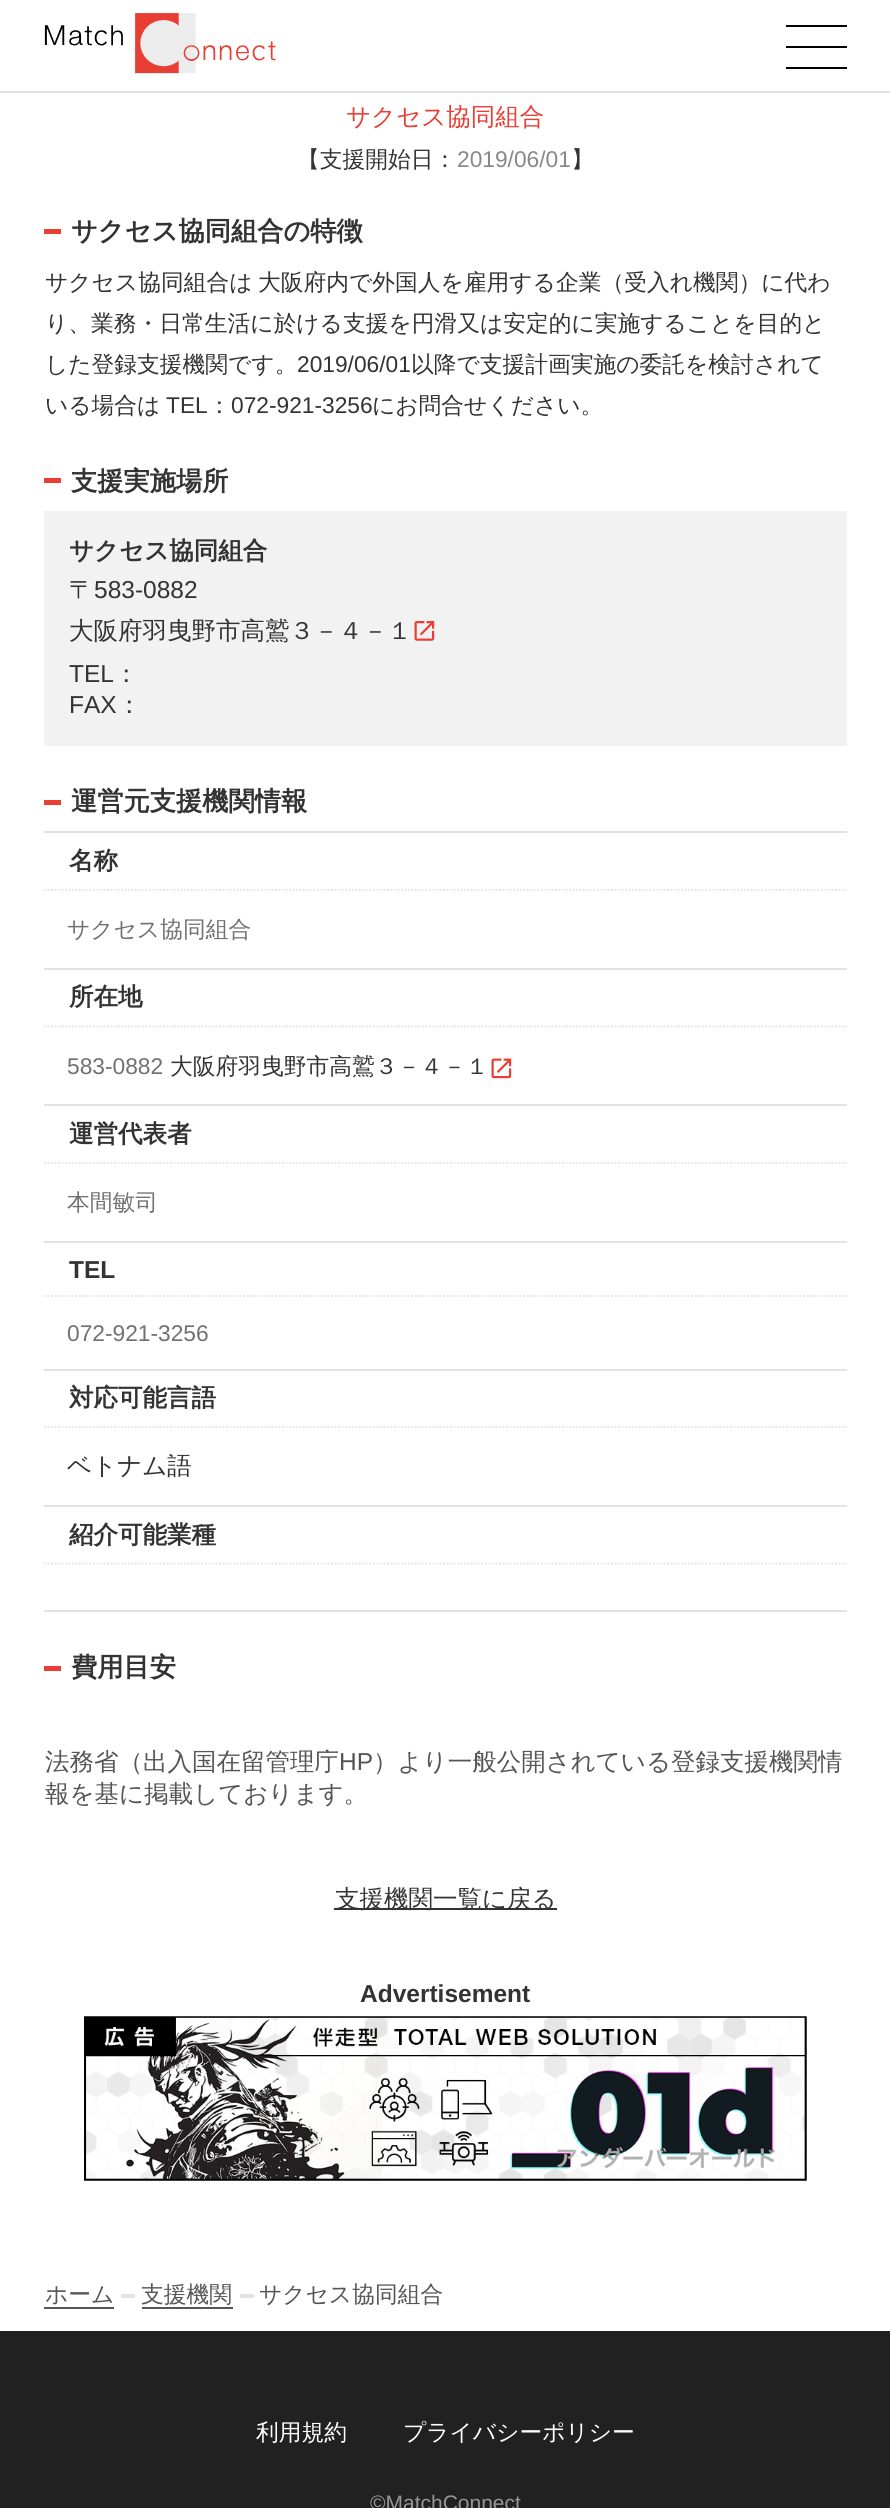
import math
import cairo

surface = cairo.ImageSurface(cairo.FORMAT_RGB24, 890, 2508)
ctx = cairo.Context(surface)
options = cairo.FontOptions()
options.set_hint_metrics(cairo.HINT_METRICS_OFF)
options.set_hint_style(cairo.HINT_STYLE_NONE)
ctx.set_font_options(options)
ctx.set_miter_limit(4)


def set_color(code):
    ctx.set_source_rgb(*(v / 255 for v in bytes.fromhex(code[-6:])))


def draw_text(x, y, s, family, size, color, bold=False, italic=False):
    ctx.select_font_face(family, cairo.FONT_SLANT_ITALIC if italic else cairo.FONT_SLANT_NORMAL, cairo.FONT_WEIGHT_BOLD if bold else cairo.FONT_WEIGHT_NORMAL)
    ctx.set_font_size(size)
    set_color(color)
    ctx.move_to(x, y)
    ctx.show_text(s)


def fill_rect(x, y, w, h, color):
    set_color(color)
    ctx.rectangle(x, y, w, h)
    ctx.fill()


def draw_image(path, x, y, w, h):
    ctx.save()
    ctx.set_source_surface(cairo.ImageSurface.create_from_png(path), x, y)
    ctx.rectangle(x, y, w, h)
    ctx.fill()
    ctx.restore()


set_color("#ffffff")
ctx.paint()
fill_rect(0, 91, 890, 2, "#e2e2e2")
draw_image("assets/img1.png", 44, 13, 232, 61)
fill_rect(786, 25, 61, 2, "#000000")
fill_rect(786, 46, 61, 2, "#000000")
fill_rect(786, 67, 61, 2, "#000000")
draw_text(346, 125, "サクセス協同組合", "WenQuanYi Zen Hei Medium", 24.5, "#e83e33")
draw_text(297, 167, "【支援開始日：", "WenQuanYi Zen Hei Medium", 22.75, "#333333")
draw_text(457, 167, "2019/06/01", "Liberation Sans", 22.75, "#888888")
draw_text(571, 167, "】", "WenQuanYi Zen Hei Medium", 22.75, "#333333")
fill_rect(44, 229, 17, 5, "#e83e33")
draw_text(71, 240, "サクセス協同組合の特徴", "WenQuanYi Zen Hei", 26.25, "#333333", bold=True)
draw_text(45, 290, "サクセス協同組合は", "WenQuanYi Zen Hei Medium", 22.75, "#333333")
draw_text(258, 290, "大阪府内で外国人を雇用する企業（受入れ機関）に代わ", "WenQuanYi Zen Hei Medium", 22.75, "#333333")
draw_text(45, 331, "り、業務・日常生活に於ける支援を円滑又は安定的に実施することを目的と", "WenQuanYi Zen Hei Medium", 22.75, "#333333")
draw_text(45, 372, "した登録支援機関です。", "WenQuanYi Zen Hei Medium", 22.75, "#333333")
draw_text(297, 372, "2019/06/01", "Liberation Sans", 22.75, "#333333")
draw_text(411, 372, "以降で支援計画実施の委託を検討されて", "WenQuanYi Zen Hei Medium", 22.75, "#333333")
draw_text(45, 413, "いる場合は", "WenQuanYi Zen Hei Medium", 22.75, "#333333")
draw_text(166, 413, "TEL", "Liberation Sans", 22.75, "#333333")
draw_text(208, 413, "：", "WenQuanYi Zen Hei Medium", 22.75, "#333333")
draw_text(231, 413, "072-921-3256", "Liberation Sans", 22.75, "#333333")
draw_text(372, 413, "にお問合せください。", "WenQuanYi Zen Hei Medium", 22.75, "#333333")
fill_rect(44, 478, 17, 5, "#e83e33")
draw_text(71, 490, "支援実施場所", "WenQuanYi Zen Hei", 26.25, "#333333", bold=True)
fill_rect(44, 511, 803, 235, "#f2f2f2")
draw_text(69, 559, "サクセス協同組合", "WenQuanYi Zen Hei", 24.5, "#333333", bold=True)
draw_text(69, 598, "〒", "WenQuanYi Zen Hei Medium", 24.5, "#333333")
draw_text(94, 598, "583-0882", "Liberation Sans", 24.5, "#333333")
draw_text(69, 639, "大阪府羽曳野市高鷲３－４－１", "WenQuanYi Zen Hei Medium", 24.5, "#333333")
draw_image("assets/img2.png", 414, 621, 21, 20)
draw_text(69, 682, "TEL", "Liberation Sans", 24.5, "#333333")
draw_text(114, 682, "：", "WenQuanYi Zen Hei Medium", 24.5, "#333333")
draw_text(69, 713, "FAX", "Liberation Sans", 24.5, "#333333")
draw_text(117, 713, "：", "WenQuanYi Zen Hei Medium", 24.5, "#333333")
fill_rect(44, 800, 17, 5, "#e83e33")
draw_text(71, 810, "運営元支援機関情報", "WenQuanYi Zen Hei", 26.25, "#333333", bold=True)
fill_rect(44, 831, 803, 2, "#e2e2e2")
ctx.new_path()
ctx.move_to(44, 890)
ctx.line_to(847, 890)
ctx.set_line_width(1.8)
ctx.set_dash([1.75, 1.75])
ctx.stroke()
draw_text(69, 869, "名称", "WenQuanYi Zen Hei", 24.5, "#333333", bold=True)
fill_rect(44, 968, 803, 2, "#e2e2e2")
draw_text(67, 937, "サクセス協同組合", "WenQuanYi Zen Hei Medium", 22.75, "#717171")
ctx.new_path()
ctx.move_to(44, 1026.5)
ctx.line_to(847, 1026.5)
set_color("#e2e2e2")
ctx.stroke()
draw_text(69, 1005, "所在地", "WenQuanYi Zen Hei", 24.5, "#333333", bold=True)
fill_rect(44, 1104, 803, 2, "#e2e2e2")
draw_text(67, 1074, "583‐0882", "Liberation Sans", 22.75, "#717171")
draw_text(170, 1074, "大阪府羽曳野市高鷲３－４－１", "WenQuanYi Zen Hei Medium", 22.75, "#333333")
draw_image("assets/img3.png", 491, 1058, 21, 21)
ctx.new_path()
ctx.move_to(44, 1163)
ctx.line_to(847, 1163)
set_color("#e2e2e2")
ctx.stroke()
draw_text(69, 1142, "運営代表者", "WenQuanYi Zen Hei", 24.5, "#333333", bold=True)
fill_rect(44, 1241, 803, 2, "#e2e2e2")
draw_text(67, 1210, "本間敏司", "WenQuanYi Zen Hei Medium", 22.75, "#717171")
ctx.new_path()
ctx.move_to(44, 1296)
ctx.line_to(847, 1296)
set_color("#e2e2e2")
ctx.stroke()
draw_text(69, 1278, "TEL", "Liberation Sans", 24.5, "#333333", bold=True)
fill_rect(44, 1369, 803, 2, "#e2e2e2")
draw_text(67, 1341, "072-921-3256", "Liberation Sans", 22.75, "#717171")
ctx.new_path()
ctx.move_to(44, 1427)
ctx.line_to(847, 1427)
set_color("#e2e2e2")
ctx.stroke()
draw_text(69, 1406, "対応可能言語", "WenQuanYi Zen Hei", 24.5, "#333333", bold=True)
fill_rect(44, 1505, 803, 2, "#e2e2e2")
draw_text(67, 1474, "ベトナム語", "WenQuanYi Zen Hei Medium", 24.5, "#333333")
ctx.new_path()
ctx.move_to(44, 1563.5)
ctx.line_to(847, 1563.5)
set_color("#e2e2e2")
ctx.stroke()
draw_text(69, 1543, "紹介可能業種", "WenQuanYi Zen Hei", 24.5, "#333333", bold=True)
fill_rect(44, 1610, 803, 2, "#e2e2e2")
fill_rect(44, 1666, 17, 5, "#e83e33")
draw_text(71, 1676, "費用目安", "WenQuanYi Zen Hei", 26.25, "#333333", bold=True)
draw_text(45, 1770, "法務省（出入国在留管理庁", "WenQuanYi Zen Hei Medium", 24.5, "#555555")
draw_text(339, 1770, "HP", "Liberation Sans", 24.5, "#555555")
draw_text(373, 1770, "）より一般公開されている登録支援機関情", "WenQuanYi Zen Hei Medium", 24.5, "#555555")
draw_text(45, 1802, "報を基に掲載しております。", "WenQuanYi Zen Hei Medium", 24.5, "#555555")
draw_text(335, 1907, "支援機関一覧に戻る", "WenQuanYi Zen Hei Medium", 24.5, "#333333")
fill_rect(334, 1908, 223, 2, "#333333")
draw_text(360, 2002, "Advertisement", "Liberation Sans", 24.5, "#333333", bold=True)
draw_image("assets/img4.png", 84, 2016, 723, 165)
draw_text(45, 2302, "ホーム", "WenQuanYi Zen Hei Medium", 22.75, "#555555")
fill_rect(121, 2294, 14, 4, "#e2e2e2")
fill_rect(44, 2307, 70, 2, "#555555")
draw_text(141, 2302, "支援機関", "WenQuanYi Zen Hei Medium", 22.75, "#555555")
fill_rect(240, 2294, 14, 4, "#e2e2e2")
fill_rect(142, 2307, 91, 2, "#555555")
draw_text(259, 2302, "サクセス協同組合", "WenQuanYi Zen Hei Medium", 22.75, "#555555")
fill_rect(0, 2331, 890, 177, "#212121")
draw_text(256, 2440, "利用規約", "WenQuanYi Zen Hei Medium", 22.75, "#ffffff")
draw_text(403, 2440, "プライバシーポリシー", "WenQuanYi Zen Hei Medium", 22.75, "#ffffff")
draw_text(370, 2510, "©MatchConnect", "Liberation Sans", 21, "#969696")
surface.write_to_png("output.png")
